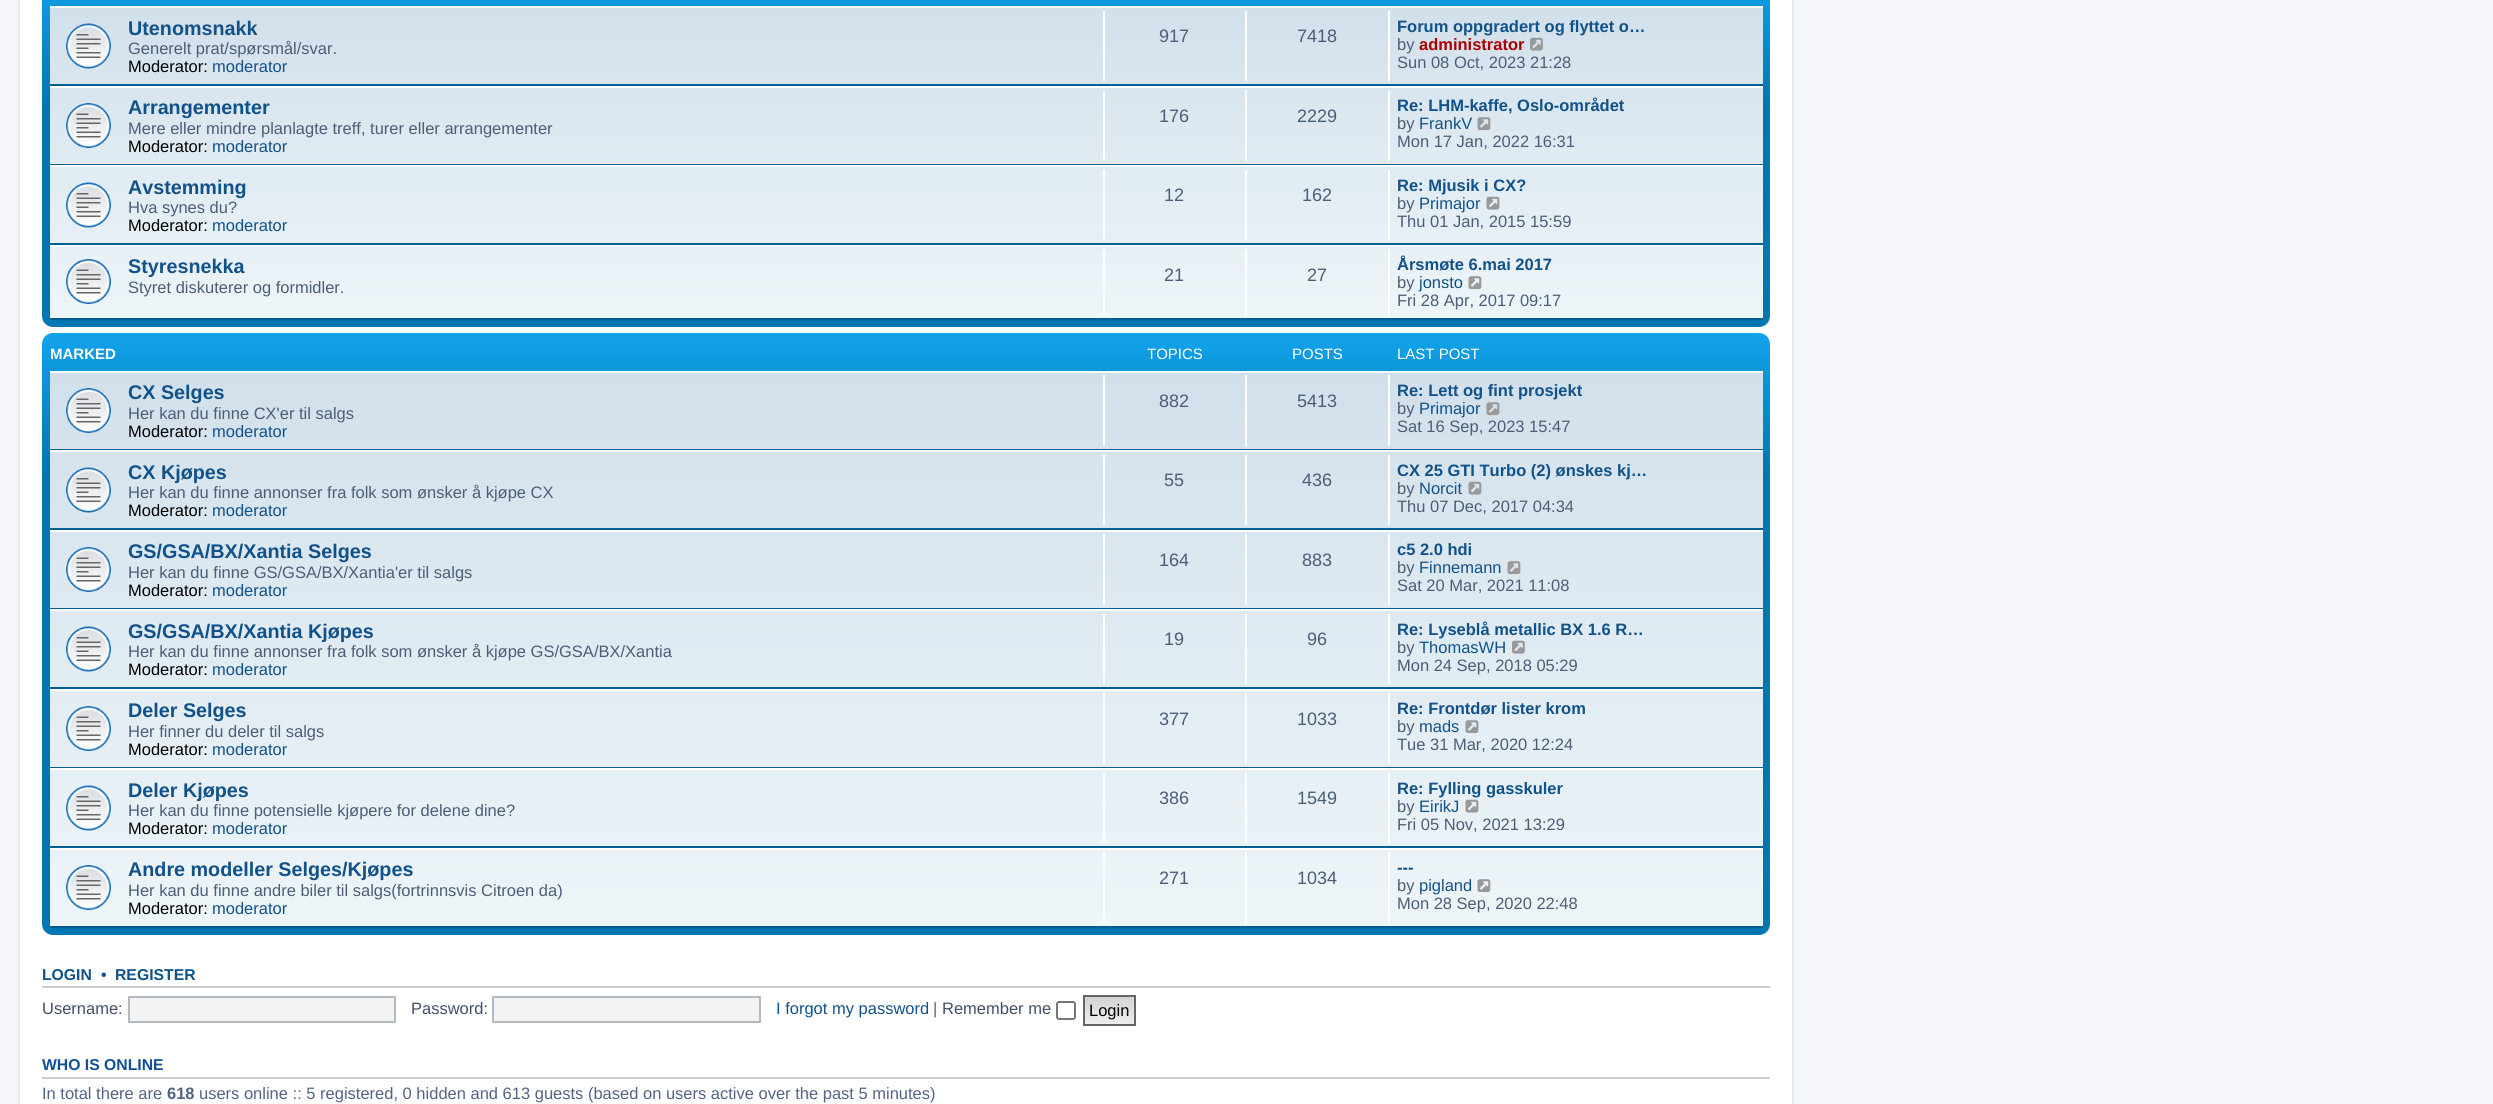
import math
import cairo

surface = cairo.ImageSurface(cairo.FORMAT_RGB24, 2493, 1104)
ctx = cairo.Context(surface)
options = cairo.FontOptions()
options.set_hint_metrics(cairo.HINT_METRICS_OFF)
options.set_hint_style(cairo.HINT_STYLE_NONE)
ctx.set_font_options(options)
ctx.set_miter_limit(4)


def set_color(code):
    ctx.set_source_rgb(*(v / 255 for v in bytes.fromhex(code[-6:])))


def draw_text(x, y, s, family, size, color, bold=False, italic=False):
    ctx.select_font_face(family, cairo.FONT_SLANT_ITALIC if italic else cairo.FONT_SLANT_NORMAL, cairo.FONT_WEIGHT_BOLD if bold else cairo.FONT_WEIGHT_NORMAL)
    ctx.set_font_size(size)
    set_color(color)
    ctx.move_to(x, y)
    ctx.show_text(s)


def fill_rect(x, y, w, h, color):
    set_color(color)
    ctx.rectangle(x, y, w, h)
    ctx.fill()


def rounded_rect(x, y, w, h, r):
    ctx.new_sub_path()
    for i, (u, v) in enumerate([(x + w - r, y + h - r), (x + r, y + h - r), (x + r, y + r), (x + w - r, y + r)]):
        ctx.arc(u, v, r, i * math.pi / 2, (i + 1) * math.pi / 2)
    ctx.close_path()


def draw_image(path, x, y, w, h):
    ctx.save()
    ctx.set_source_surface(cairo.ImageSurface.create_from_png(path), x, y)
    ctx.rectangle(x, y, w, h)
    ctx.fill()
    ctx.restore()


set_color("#f5f7fa")
ctx.paint()
set_color("#ffffff")
ctx.rectangle(19, -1, 1774, 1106)
ctx.fill_preserve()
set_color("#e6e9ed")
ctx.stroke()
gradient = cairo.LinearGradient(906, -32, 906, 327)
gradient.add_color_stop_rgba(0, 0.416, 0.808, 1, 1)
gradient.add_color_stop_rgba(0.01, 0.071, 0.639, 0.922, 1)
gradient.add_color_stop_rgba(0.38, 0, 0.463, 0.694, 1)
gradient.add_color_stop_rgba(1, 0, 0.463, 0.694, 1)
ctx.set_source(gradient)
rounded_rect(42, -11, 1728, 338, 11)
ctx.fill()
gradient = cairo.LinearGradient(906, 6, 906, 320)
gradient.add_color_stop_rgba(0, 0.824, 0.878, 0.922, 1)
gradient.add_color_stop_rgba(1, 0.933, 0.961, 0.976, 1)
ctx.set_source(gradient)
ctx.rectangle(50, 8, 1713, 310)
ctx.fill()
fill_rect(50, 6, 1713, 2, "#ffffff")
fill_rect(50, 84, 1713, 2, "#00608f")
draw_image("assets/img1.png", 66, 23, 45, 46)
draw_text(128, 35, "Utenomsnakk", "Liberation Sans", 19.75, "#105289", bold=True)
draw_text(128, 54, "Generelt prat/spørsmål/svar.", "Liberation Sans", 16.5, "#4c5d77")
draw_text(128, 72, "Moderator:", "Liberation Sans", 16.5, "#000000")
draw_text(212, 72, "moderator", "Liberation Sans", 16.5, "#105289")
fill_rect(1103, 11, 2, 70, "#ffffff")
draw_text(1159, 42, "917", "Liberation Sans", 18, "#4c5d77")
fill_rect(1245, 11, 2, 70, "#ffffff")
draw_text(1297, 42, "7418", "Liberation Sans", 18, "#4c5d77")
fill_rect(1388, 11, 2, 70, "#ffffff")
draw_text(1397, 32, "Forum oppgradert og flyttet o…", "Liberation Sans", 16.5, "#105289", bold=True)
draw_text(1397, 50, "by", "Liberation Sans", 16.5, "#4c5d77")
draw_text(1419, 50, "administrator", "Liberation Sans", 16.5, "#aa0000", bold=True)
draw_image("assets/img2.png", 1530, 37, 13, 14)
draw_text(1397, 68, "Sun 08 Oct, 2023 21:28", "Liberation Sans", 16.5, "#4c5d77")
fill_rect(50, 86, 1713, 2, "#ffffff")
fill_rect(50, 164, 1713, 1, "#00608f")
draw_image("assets/img3.png", 66, 103, 45, 45)
draw_text(128, 114, "Arrangementer", "Liberation Sans", 19.75, "#105289", bold=True)
draw_text(128, 134, "Mere eller mindre planlagte treff, turer eller arrangementer", "Liberation Sans", 16.5, "#4c5d77")
draw_text(128, 152, "Moderator:", "Liberation Sans", 16.5, "#000000")
draw_text(212, 152, "moderator", "Liberation Sans", 16.5, "#105289")
fill_rect(1103, 90, 2, 71, "#ffffff")
draw_text(1159, 122, "176", "Liberation Sans", 18, "#4c5d77")
fill_rect(1245, 90, 2, 71, "#ffffff")
draw_text(1297, 122, "2229", "Liberation Sans", 18, "#4c5d77")
fill_rect(1388, 90, 2, 71, "#ffffff")
draw_text(1397, 111, "Re: LHM-kaffe, Oslo-området", "Liberation Sans", 16.5, "#105289", bold=True)
draw_text(1397, 129, "by", "Liberation Sans", 16.5, "#4c5d77")
draw_text(1419, 129, "FrankV", "Liberation Sans", 16.5, "#105289")
draw_image("assets/img4.png", 1477, 117, 14, 14)
draw_text(1397, 147, "Mon 17 Jan, 2022 16:31", "Liberation Sans", 16.5, "#4c5d77")
fill_rect(50, 165, 1713, 2, "#ffffff")
fill_rect(50, 243, 1713, 2, "#00608f")
draw_image("assets/img5.png", 66, 182, 45, 46)
draw_text(128, 194, "Avstemming", "Liberation Sans", 19.75, "#105289", bold=True)
draw_text(128, 213, "Hva synes du?", "Liberation Sans", 16.5, "#4c5d77")
draw_text(128, 231, "Moderator:", "Liberation Sans", 16.5, "#000000")
draw_text(212, 231, "moderator", "Liberation Sans", 16.5, "#105289")
fill_rect(1103, 170, 2, 70, "#ffffff")
draw_text(1164, 201, "12", "Liberation Sans", 18, "#4c5d77")
fill_rect(1245, 170, 2, 70, "#ffffff")
draw_text(1302, 201, "162", "Liberation Sans", 18, "#4c5d77")
fill_rect(1388, 170, 2, 70, "#ffffff")
draw_text(1397, 191, "Re: Mjusik i CX?", "Liberation Sans", 16.5, "#105289", bold=True)
draw_text(1397, 209, "by", "Liberation Sans", 16.5, "#4c5d77")
draw_text(1419, 209, "Primajor", "Liberation Sans", 16.5, "#105289")
draw_image("assets/img6.png", 1486, 196, 14, 14)
draw_text(1397, 227, "Thu 01 Jan, 2015 15:59", "Liberation Sans", 16.5, "#4c5d77")
fill_rect(50, 245, 1713, 2, "#ffffff")
fill_rect(50, 318, 1713, 2, "#00608f")
draw_image("assets/img7.png", 66, 259, 45, 45)
draw_text(128, 273, "Styresnekka", "Liberation Sans", 19.75, "#105289", bold=True)
draw_text(128, 293, "Styret diskuterer og formidler.", "Liberation Sans", 16.5, "#4c5d77")
fill_rect(1103, 249, 2, 66, "#ffffff")
draw_text(1164, 281, "21", "Liberation Sans", 18, "#4c5d77")
fill_rect(1245, 249, 2, 66, "#ffffff")
draw_text(1307, 281, "27", "Liberation Sans", 18, "#4c5d77")
fill_rect(1388, 249, 2, 66, "#ffffff")
draw_text(1397, 270, "Årsmøte 6.mai 2017", "Liberation Sans", 16.5, "#105289", bold=True)
draw_text(1397, 288, "by", "Liberation Sans", 16.5, "#4c5d77")
draw_text(1419, 288, "jonsto", "Liberation Sans", 16.5, "#105289")
draw_image("assets/img8.png", 1468, 276, 14, 14)
draw_text(1397, 306, "Fri 28 Apr, 2017 09:17", "Liberation Sans", 16.5, "#4c5d77")
gradient = cairo.LinearGradient(906, 333, 906, 935)
gradient.add_color_stop_rgba(0, 0.416, 0.808, 1, 1)
gradient.add_color_stop_rgba(0, 0.071, 0.639, 0.922, 1)
gradient.add_color_stop_rgba(0.23, 0, 0.463, 0.694, 1)
gradient.add_color_stop_rgba(1, 0, 0.463, 0.694, 1)
ctx.set_source(gradient)
rounded_rect(42, 333, 1728, 602, 11)
ctx.fill()
draw_text(50, 359, "MARKED", "Liberation Sans", 15, "#ffffff", bold=True)
draw_text(1147, 359, "TOPICS", "Liberation Sans", 15, "#ffffff")
draw_text(1292, 359, "POSTS", "Liberation Sans", 15, "#ffffff")
draw_text(1397, 359, "LAST POST", "Liberation Sans", 15, "#ffffff")
gradient = cairo.LinearGradient(906, 370, 906, 927)
gradient.add_color_stop_rgba(0, 0.824, 0.878, 0.922, 1)
gradient.add_color_stop_rgba(1, 0.933, 0.961, 0.976, 1)
ctx.set_source(gradient)
ctx.rectangle(50, 373, 1713, 553)
ctx.fill()
fill_rect(50, 371, 1713, 2, "#ffffff")
fill_rect(50, 449, 1713, 1, "#00608f")
draw_image("assets/img9.png", 66, 388, 45, 45)
draw_text(128, 399, "CX Selges", "Liberation Sans", 19.75, "#105289", bold=True)
draw_text(128, 419, "Her kan du finne CX'er til salgs", "Liberation Sans", 16.5, "#4c5d77")
draw_text(128, 437, "Moderator:", "Liberation Sans", 16.5, "#000000")
draw_text(212, 437, "moderator", "Liberation Sans", 16.5, "#105289")
fill_rect(1103, 375, 2, 71, "#ffffff")
draw_text(1159, 407, "882", "Liberation Sans", 18, "#4c5d77")
fill_rect(1245, 375, 2, 71, "#ffffff")
draw_text(1297, 407, "5413", "Liberation Sans", 18, "#4c5d77")
fill_rect(1388, 375, 2, 71, "#ffffff")
draw_text(1397, 396, "Re: Lett og fint prosjekt", "Liberation Sans", 16.5, "#105289", bold=True)
draw_text(1397, 414, "by", "Liberation Sans", 16.5, "#4c5d77")
draw_text(1419, 414, "Primajor", "Liberation Sans", 16.5, "#105289")
draw_image("assets/img10.png", 1486, 402, 14, 14)
draw_text(1397, 432, "Sat 16 Sep, 2023 15:47", "Liberation Sans", 16.5, "#4c5d77")
fill_rect(50, 450, 1713, 2, "#ffffff")
fill_rect(50, 528, 1713, 2, "#00608f")
draw_image("assets/img11.png", 66, 467, 45, 46)
draw_text(128, 479, "CX Kjøpes", "Liberation Sans", 19.75, "#105289", bold=True)
draw_text(128, 498, "Her kan du finne annonser fra folk som ønsker å kjøpe CX", "Liberation Sans", 16.5, "#4c5d77")
draw_text(128, 516, "Moderator:", "Liberation Sans", 16.5, "#000000")
draw_text(212, 516, "moderator", "Liberation Sans", 16.5, "#105289")
fill_rect(1103, 455, 2, 70, "#ffffff")
draw_text(1164, 486, "55", "Liberation Sans", 18, "#4c5d77")
fill_rect(1245, 455, 2, 70, "#ffffff")
draw_text(1302, 486, "436", "Liberation Sans", 18, "#4c5d77")
fill_rect(1388, 455, 2, 70, "#ffffff")
draw_text(1397, 476, "CX 25 GTI Turbo (2) ønskes kj…", "Liberation Sans", 16.5, "#105289", bold=True)
draw_text(1397, 494, "by", "Liberation Sans", 16.5, "#4c5d77")
draw_text(1419, 494, "Norcit", "Liberation Sans", 16.5, "#105289")
draw_image("assets/img12.png", 1468, 481, 14, 14)
draw_text(1397, 512, "Thu 07 Dec, 2017 04:34", "Liberation Sans", 16.5, "#4c5d77")
fill_rect(50, 530, 1713, 2, "#ffffff")
fill_rect(50, 608, 1713, 1, "#00608f")
draw_image("assets/img13.png", 66, 547, 45, 45)
draw_text(128, 558, "GS/GSA/BX/Xantia Selges", "Liberation Sans", 19.75, "#105289", bold=True)
draw_text(128, 578, "Her kan du finne GS/GSA/BX/Xantia'er til salgs", "Liberation Sans", 16.5, "#4c5d77")
draw_text(128, 596, "Moderator:", "Liberation Sans", 16.5, "#000000")
draw_text(212, 596, "moderator", "Liberation Sans", 16.5, "#105289")
fill_rect(1103, 534, 2, 71, "#ffffff")
draw_text(1159, 566, "164", "Liberation Sans", 18, "#4c5d77")
fill_rect(1245, 534, 2, 71, "#ffffff")
draw_text(1302, 566, "883", "Liberation Sans", 18, "#4c5d77")
fill_rect(1388, 534, 2, 71, "#ffffff")
draw_text(1397, 555, "c5 2.0 hdi", "Liberation Sans", 16.5, "#105289", bold=True)
draw_text(1397, 573, "by", "Liberation Sans", 16.5, "#4c5d77")
draw_text(1419, 573, "Finnemann", "Liberation Sans", 16.5, "#105289")
draw_image("assets/img14.png", 1507, 561, 14, 14)
draw_text(1397, 591, "Sat 20 Mar, 2021 11:08", "Liberation Sans", 16.5, "#4c5d77")
fill_rect(50, 609, 1713, 2, "#ffffff")
fill_rect(50, 687, 1713, 2, "#00608f")
draw_image("assets/img15.png", 66, 626, 45, 46)
draw_text(128, 638, "GS/GSA/BX/Xantia Kjøpes", "Liberation Sans", 19.75, "#105289", bold=True)
draw_text(128, 657, "Her kan du finne annonser fra folk som ønsker å kjøpe GS/GSA/BX/Xantia", "Liberation Sans", 16.5, "#4c5d77")
draw_text(128, 675, "Moderator:", "Liberation Sans", 16.5, "#000000")
draw_text(212, 675, "moderator", "Liberation Sans", 16.5, "#105289")
fill_rect(1103, 614, 2, 70, "#ffffff")
draw_text(1164, 645, "19", "Liberation Sans", 18, "#4c5d77")
fill_rect(1245, 614, 2, 70, "#ffffff")
draw_text(1307, 645, "96", "Liberation Sans", 18, "#4c5d77")
fill_rect(1388, 614, 2, 70, "#ffffff")
draw_text(1397, 635, "Re: Lyseblå metallic BX 1.6 R…", "Liberation Sans", 16.5, "#105289", bold=True)
draw_text(1397, 653, "by", "Liberation Sans", 16.5, "#4c5d77")
draw_text(1419, 653, "ThomasWH", "Liberation Sans", 16.5, "#105289")
draw_image("assets/img16.png", 1512, 640, 13, 14)
draw_text(1397, 671, "Mon 24 Sep, 2018 05:29", "Liberation Sans", 16.5, "#4c5d77")
fill_rect(50, 689, 1713, 2, "#ffffff")
fill_rect(50, 767, 1713, 1, "#00608f")
draw_image("assets/img17.png", 66, 706, 45, 45)
draw_text(128, 717, "Deler Selges", "Liberation Sans", 19.75, "#105289", bold=True)
draw_text(128, 737, "Her finner du deler til salgs", "Liberation Sans", 16.5, "#4c5d77")
draw_text(128, 755, "Moderator:", "Liberation Sans", 16.5, "#000000")
draw_text(212, 755, "moderator", "Liberation Sans", 16.5, "#105289")
fill_rect(1103, 693, 2, 71, "#ffffff")
draw_text(1159, 725, "377", "Liberation Sans", 18, "#4c5d77")
fill_rect(1245, 693, 2, 71, "#ffffff")
draw_text(1297, 725, "1033", "Liberation Sans", 18, "#4c5d77")
fill_rect(1388, 693, 2, 71, "#ffffff")
draw_text(1397, 714, "Re: Frontdør lister krom", "Liberation Sans", 16.5, "#105289", bold=True)
draw_text(1397, 732, "by", "Liberation Sans", 16.5, "#4c5d77")
draw_text(1419, 732, "mads", "Liberation Sans", 16.5, "#105289")
draw_image("assets/img18.png", 1465, 720, 14, 14)
draw_text(1397, 750, "Tue 31 Mar, 2020 12:24", "Liberation Sans", 16.5, "#4c5d77")
fill_rect(50, 768, 1713, 2, "#ffffff")
fill_rect(50, 846, 1713, 2, "#00608f")
draw_image("assets/img19.png", 66, 785, 45, 46)
draw_text(128, 797, "Deler Kjøpes", "Liberation Sans", 19.75, "#105289", bold=True)
draw_text(128, 816, "Her kan du finne potensielle kjøpere for delene dine?", "Liberation Sans", 16.5, "#4c5d77")
draw_text(128, 834, "Moderator:", "Liberation Sans", 16.5, "#000000")
draw_text(212, 834, "moderator", "Liberation Sans", 16.5, "#105289")
fill_rect(1103, 773, 2, 70, "#ffffff")
draw_text(1159, 804, "386", "Liberation Sans", 18, "#4c5d77")
fill_rect(1245, 773, 2, 70, "#ffffff")
draw_text(1297, 804, "1549", "Liberation Sans", 18, "#4c5d77")
fill_rect(1388, 773, 2, 70, "#ffffff")
draw_text(1397, 794, "Re: Fylling gasskuler", "Liberation Sans", 16.5, "#105289", bold=True)
draw_text(1397, 812, "by", "Liberation Sans", 16.5, "#4c5d77")
draw_text(1419, 812, "EirikJ", "Liberation Sans", 16.5, "#105289")
draw_image("assets/img20.png", 1465, 799, 14, 14)
draw_text(1397, 830, "Fri 05 Nov, 2021 13:29", "Liberation Sans", 16.5, "#4c5d77")
fill_rect(50, 848, 1713, 2, "#ffffff")
fill_rect(50, 926, 1713, 2, "#00608f")
draw_image("assets/img21.png", 66, 865, 45, 45)
draw_text(128, 876, "Andre modeller Selges/Kjøpes", "Liberation Sans", 19.75, "#105289", bold=True)
draw_text(128, 896, "Her kan du finne andre biler til salgs(fortrinnsvis Citroen da)", "Liberation Sans", 16.5, "#4c5d77")
draw_text(128, 914, "Moderator:", "Liberation Sans", 16.5, "#000000")
draw_text(212, 914, "moderator", "Liberation Sans", 16.5, "#105289")
fill_rect(1103, 852, 2, 71, "#ffffff")
draw_text(1159, 884, "271", "Liberation Sans", 18, "#4c5d77")
fill_rect(1245, 852, 2, 71, "#ffffff")
draw_text(1297, 884, "1034", "Liberation Sans", 18, "#4c5d77")
fill_rect(1388, 852, 2, 71, "#ffffff")
draw_text(1397, 873, "---", "Liberation Sans", 16.5, "#105289", bold=True)
draw_text(1397, 891, "by", "Liberation Sans", 16.5, "#4c5d77")
draw_text(1419, 891, "pigland", "Liberation Sans", 16.5, "#105289")
draw_image("assets/img22.png", 1477, 879, 14, 14)
draw_text(1397, 909, "Mon 28 Sep, 2020 22:48", "Liberation Sans", 16.5, "#4c5d77")
fill_rect(42, 986, 1728, 2, "#cccccc")
draw_text(42, 980, "LOGIN", "Liberation Sans", 15.75, "#105289", bold=True)
draw_text(101, 980, "•", "Liberation Sans", 15.75, "#115098", bold=True)
draw_text(115, 980, "REGISTER", "Liberation Sans", 15.75, "#105289", bold=True)
draw_text(42, 1014, "Username:", "Liberation Sans", 16.5, "#425067")
set_color("#f2f3f3")
ctx.rectangle(129, 997, 266, 25)
ctx.fill_preserve()
set_color("#b4bac0")
ctx.stroke()
draw_text(411, 1014, "Password:", "Liberation Sans", 16.5, "#425067")
set_color("#f2f3f3")
ctx.rectangle(493, 997, 267, 25)
ctx.fill_preserve()
set_color("#b4bac0")
ctx.stroke()
draw_text(776, 1014, "I forgot my password", "Liberation Sans", 16.5, "#105289")
draw_text(933, 1014, "|", "Liberation Sans", 16.5, "#536482")
draw_text(942, 1014, "Remember me", "Liberation Sans", 16.5, "#425067")
rounded_rect(1057, 1002, 18, 17, 2)
set_color("#767676")
ctx.stroke()
gradient = cairo.LinearGradient(1109, 996, 1109, 1025)
gradient.add_color_stop_rgba(0, 0.824, 0.824, 0.824, 1)
gradient.add_color_stop_rgba(1, 0.937, 0.937, 0.937, 1)
ctx.set_source(gradient)
ctx.rectangle(1085, 997, 49, 27)
ctx.fill()
ctx.rectangle(1084, 996, 51, 29)
set_color("#666666")
ctx.stroke()
draw_text(1089, 1016, "Login", "Liberation Sans", 16.5, "#000000")
fill_rect(42, 1077, 1728, 2, "#cccccc")
draw_text(42, 1070, "WHO IS ONLINE", "Liberation Sans", 15.75, "#115098", bold=True)
draw_text(42, 1099, "In total there are", "Liberation Sans", 16.5, "#536482")
draw_text(167, 1099, "618", "Liberation Sans", 16.5, "#536482", bold=True)
draw_text(199, 1099, "users online :: 5 registered, 0 hidden and 613 guests (based on users active over the past 5 minutes)", "Liberation Sans", 16.5, "#536482")
surface.write_to_png("output.png")
